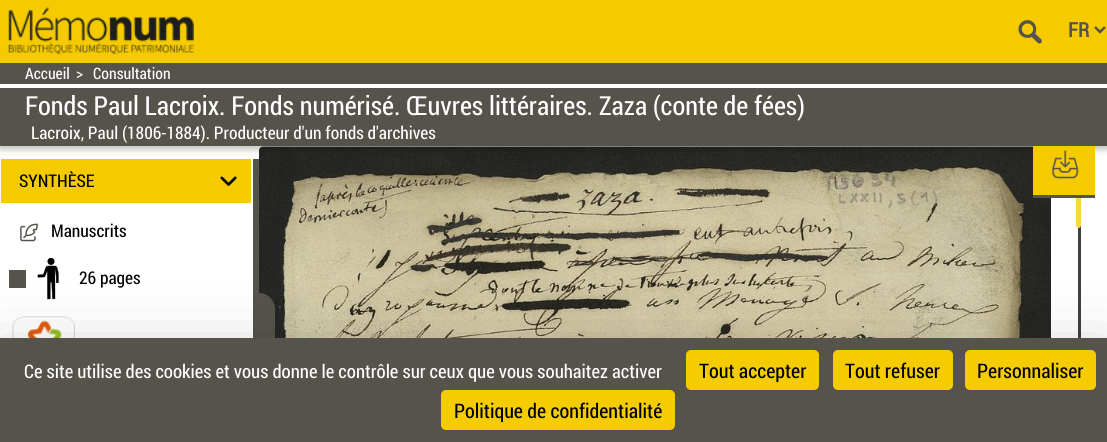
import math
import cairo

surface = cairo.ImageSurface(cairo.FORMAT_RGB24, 1107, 442)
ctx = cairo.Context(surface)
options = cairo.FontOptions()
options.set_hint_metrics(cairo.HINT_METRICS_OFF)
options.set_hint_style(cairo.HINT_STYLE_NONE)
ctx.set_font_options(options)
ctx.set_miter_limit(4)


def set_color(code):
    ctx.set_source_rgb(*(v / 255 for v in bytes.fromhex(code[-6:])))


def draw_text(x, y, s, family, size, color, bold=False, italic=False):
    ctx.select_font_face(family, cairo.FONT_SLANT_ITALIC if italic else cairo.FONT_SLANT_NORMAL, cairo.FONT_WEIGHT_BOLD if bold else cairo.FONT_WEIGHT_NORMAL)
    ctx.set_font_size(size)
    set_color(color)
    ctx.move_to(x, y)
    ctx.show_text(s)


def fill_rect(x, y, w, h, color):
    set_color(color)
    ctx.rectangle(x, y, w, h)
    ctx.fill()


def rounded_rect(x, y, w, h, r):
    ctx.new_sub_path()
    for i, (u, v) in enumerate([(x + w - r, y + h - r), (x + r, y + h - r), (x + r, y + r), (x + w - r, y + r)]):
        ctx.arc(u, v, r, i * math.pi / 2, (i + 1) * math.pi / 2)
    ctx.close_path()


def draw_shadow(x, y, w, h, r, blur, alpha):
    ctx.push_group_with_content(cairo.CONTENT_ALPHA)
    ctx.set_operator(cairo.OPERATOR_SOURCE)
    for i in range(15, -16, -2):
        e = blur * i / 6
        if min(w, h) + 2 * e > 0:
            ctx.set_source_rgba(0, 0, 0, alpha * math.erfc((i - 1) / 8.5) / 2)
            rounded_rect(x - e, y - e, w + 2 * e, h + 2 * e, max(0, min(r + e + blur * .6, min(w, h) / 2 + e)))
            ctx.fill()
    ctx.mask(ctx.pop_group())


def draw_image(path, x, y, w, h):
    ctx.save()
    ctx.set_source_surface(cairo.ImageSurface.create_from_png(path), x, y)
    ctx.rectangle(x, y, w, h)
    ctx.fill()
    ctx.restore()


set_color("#ffffff")
ctx.paint()
draw_image("assets/img7.png", 259, 146, 792, 192)
fill_rect(1078, 225, 3, 113, "#404040")
set_color("#f8d840")
rounded_rect(1076, 159, 5, 69, 2.5)
ctx.fill()
set_color("#000000")
draw_shadow(0, 65, 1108, 84, 0, 6, 0.12)
draw_shadow(0, 65, 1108, 84, 0, 2.5, 0.16)
fill_rect(0, 0, 1107, 63, "#f5cb00")
draw_image("assets/img1.png", 7, 7, 187, 47)
draw_image("assets/img2.png", 1018, 20, 24, 24)
ctx.new_path()
ctx.move_to(1095, 27)
ctx.line_to(1100, 32)
ctx.line_to(1105, 27)
set_color("#56534c")
ctx.set_line_width(2.5)
ctx.stroke()
draw_text(1068, 37, "FR", "Roboto Condensed", 20, "#56534c", bold=True)
fill_rect(0, 63, 1107, 83, "#56534c")
fill_rect(0, 84, 1107, 4, "#ffffff")
draw_text(25, 79, "Accueil", "Roboto Condensed", 15.75, "#ffffff")
draw_text(76, 79, ">", "Roboto Condensed", 15.75, "#ffffff")
draw_text(93, 79, "Consultation", "Roboto Condensed", 15.75, "#ffffff")
draw_text(25, 115, "Fonds Paul Lacroix. Fonds numérisé. Œuvres littéraires. Zaza (conte de fées)", "Roboto Condensed", 26.25, "#ffffff")
draw_text(31, 139, "Lacroix, Paul (1806-1884). Producteur d'un fonds d'archives", "Roboto Condensed", 17.5, "#ffffff")
fill_rect(253, 159, 6, 179, "#56534c")
fill_rect(1, 159, 250, 44, "#f5cb00")
draw_text(19, 187, "SYNTHÈSE", "Roboto Condensed", 17.5, "#000000")
draw_image("assets/img3.png", 220, 176, 17, 10)
draw_image("assets/img4.png", 20, 223, 18, 19)
draw_text(51, 237, "Manuscrits", "Roboto Condensed", 17.5, "#000000")
fill_rect(9, 270, 17, 18, "#56534c")
draw_image("assets/img5.png", 37, 257, 22, 43)
draw_text(79, 284, "26 pages", "Roboto Condensed", 17.5, "#000000")
draw_image("assets/img6.png", 12, 316, 63, 22)
set_color("#56534c")
ctx.new_path()
ctx.move_to(259.5, 293.5)
ctx.line_to(259, 293.5)
ctx.curve_to(267.5, 293.5, 274.5, 300.5, 274.5, 309)
ctx.line_to(274.5, 402)
ctx.curve_to(274.5, 410.5, 267.5, 417.5, 259, 417.5)
ctx.line_to(259.5, 417.5)
ctx.close_path()
ctx.fill_preserve()
ctx.set_line_width(1)
ctx.stroke()
fill_rect(1033, 146, 62, 49, "#f5cb00")
draw_image("assets/img8.png", 1052, 150, 27, 29)
fill_rect(1033, 195, 62, 3, "#56534c")
set_color("#000000")
draw_shadow(0, 363, 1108, 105, 0, 37.5, 0.25)
fill_rect(0, 338, 1107, 104, "#56534c")
draw_text(24, 378, "Ce site utilise des cookies et vous donne le contrôle sur ceux que vous souhaitez activer", "Roboto Condensed", 18.75, "#ffffff")
set_color("#f5cc00")
rounded_rect(686, 350, 133, 40, 5)
ctx.fill()
draw_text(699, 378, "Tout accepter", "Roboto Condensed", 20, "#000000")
set_color("#f5cc00")
rounded_rect(833, 350, 120, 40, 5)
ctx.fill()
draw_text(845, 378, "Tout refuser", "Roboto Condensed", 20, "#000000")
set_color("#f5cc00")
rounded_rect(965, 350, 131, 40, 5)
ctx.fill()
draw_text(977, 378, "Personnaliser", "Roboto Condensed", 20, "#000000")
set_color("#f5cc00")
rounded_rect(441, 390, 234, 40, 5)
ctx.fill()
draw_text(454, 418, "Politique de confidentialité", "Roboto Condensed", 20, "#000000")
surface.write_to_png("output.png")
